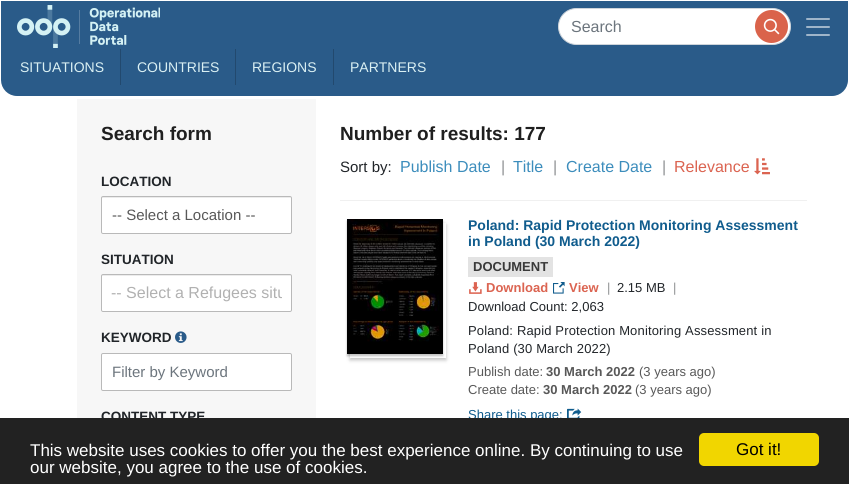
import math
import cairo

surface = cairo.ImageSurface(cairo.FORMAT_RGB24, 849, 484)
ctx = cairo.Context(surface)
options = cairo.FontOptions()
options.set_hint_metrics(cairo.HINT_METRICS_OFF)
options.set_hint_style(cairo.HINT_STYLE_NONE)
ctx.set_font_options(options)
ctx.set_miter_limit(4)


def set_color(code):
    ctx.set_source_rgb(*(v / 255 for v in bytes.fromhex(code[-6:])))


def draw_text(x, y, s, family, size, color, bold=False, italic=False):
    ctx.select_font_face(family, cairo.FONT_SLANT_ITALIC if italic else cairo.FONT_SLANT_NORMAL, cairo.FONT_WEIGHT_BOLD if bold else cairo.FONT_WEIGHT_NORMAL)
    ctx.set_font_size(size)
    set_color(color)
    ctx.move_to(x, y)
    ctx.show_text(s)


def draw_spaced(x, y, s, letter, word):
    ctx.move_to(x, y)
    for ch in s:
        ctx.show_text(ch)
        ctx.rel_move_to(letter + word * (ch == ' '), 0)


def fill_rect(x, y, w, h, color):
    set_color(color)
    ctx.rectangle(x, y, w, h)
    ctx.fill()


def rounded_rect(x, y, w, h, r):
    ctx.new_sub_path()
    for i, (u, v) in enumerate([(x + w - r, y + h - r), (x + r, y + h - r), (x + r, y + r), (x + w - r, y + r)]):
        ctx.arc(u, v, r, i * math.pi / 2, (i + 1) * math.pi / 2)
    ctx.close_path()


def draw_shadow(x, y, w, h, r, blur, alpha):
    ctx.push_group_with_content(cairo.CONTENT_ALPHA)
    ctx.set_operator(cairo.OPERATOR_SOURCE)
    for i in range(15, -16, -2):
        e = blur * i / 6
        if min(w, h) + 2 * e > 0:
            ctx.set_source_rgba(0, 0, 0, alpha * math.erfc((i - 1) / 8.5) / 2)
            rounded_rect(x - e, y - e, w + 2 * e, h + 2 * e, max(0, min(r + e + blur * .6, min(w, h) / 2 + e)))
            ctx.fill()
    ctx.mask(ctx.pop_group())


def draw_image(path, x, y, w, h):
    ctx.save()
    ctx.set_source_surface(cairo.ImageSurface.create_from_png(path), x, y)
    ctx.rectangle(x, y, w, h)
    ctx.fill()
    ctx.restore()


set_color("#ffffff")
ctx.paint()
set_color("#2a5b89")
ctx.new_path()
ctx.move_to(2.5, 2.5)
ctx.line_to(846.5, 2.5)
ctx.line_to(846.5, 80)
ctx.curve_to(846.5, 88, 840, 94.5, 832, 94.5)
ctx.line_to(17, 94.5)
ctx.curve_to(9, 94.5, 2.5, 88, 2.5, 80)
ctx.close_path()
ctx.fill_preserve()
ctx.set_line_width(3)
ctx.stroke()
draw_image("assets/img1.png", 17, 5, 143, 43)
set_color("#ffffff")
rounded_rect(558.5, 8.5, 232, 36, 18)
ctx.fill_preserve()
set_color("#ced4da")
ctx.set_line_width(1)
ctx.stroke()
draw_text(571, 32, "Search", "Liberation Sans", 16, "#6c757d")
set_color("#da634b")
ctx.new_path()
ctx.arc(771.5, 26.5, 16.5, 0, 2 * math.pi)
ctx.fill()
draw_image("assets/img2.png", 763, 18, 17, 17)
draw_image("assets/img3.png", 806, 18, 24, 18)
draw_text(20, 72, "SITUATIONS", "Liberation Sans", 14, "#daf0f3")
fill_rect(120, 49, 1, 36, "#22496e")
draw_text(137, 72, "COUNTRIES", "Liberation Sans", 14, "#daf0f3")
fill_rect(235, 49, 1, 36, "#22496e")
draw_text(252, 72, "REGIONS", "Liberation Sans", 14, "#daf0f3")
fill_rect(333, 49, 1, 36, "#22496e")
draw_text(350, 72, "PARTNERS", "Liberation Sans", 14, "#daf0f3")
fill_rect(77, 99, 239, 319, "#f7f7f7")
draw_text(101, 140, "Search form", "Liberation Sans", 19, "#1f1f1f", bold=True)
draw_text(101, 186, "LOCATION", "Liberation Sans", 13.5, "#212529", bold=True)
set_color("#ffffff")
rounded_rect(101, 196, 191, 38, 2)
ctx.fill()
set_color("#ececec")
ctx.new_path()
ctx.move_to(103, 198)
ctx.line_to(291, 198)
ctx.line_to(291, 199)
ctx.curve_to(291, 198, 291, 197, 290, 197)
ctx.line_to(102, 197)
ctx.line_to(102, 199)
ctx.curve_to(102, 198, 102, 198, 103, 198)
ctx.close_path()
ctx.fill()
rounded_rect(101.5, 196.5, 190, 37, 1.5)
set_color("#b9b9b9")
ctx.stroke()
draw_text(112, 220, "-- Select a Location --", "Liberation Sans", 15, "#585858")
draw_text(101, 264, "SITUATION", "Liberation Sans", 13.5, "#212529", bold=True)
set_color("#ffffff")
rounded_rect(101, 274, 191, 38, 2)
ctx.fill()
set_color("#ececec")
ctx.new_path()
ctx.move_to(103, 276)
ctx.line_to(291, 276)
ctx.line_to(291, 277)
ctx.curve_to(291, 276, 291, 275, 290, 275)
ctx.line_to(102, 275)
ctx.line_to(102, 277)
ctx.curve_to(102, 276, 102, 276, 103, 276)
ctx.close_path()
ctx.fill()
rounded_rect(101.5, 274.5, 190, 37, 1.5)
set_color("#b9b9b9")
ctx.stroke()
ctx.save()
ctx.rectangle(111, 284, 171, 18)
ctx.clip()
draw_text(111, 298, "-- Select a Refugees situ", "Liberation Sans", 16, "#b1b1b1")
ctx.restore()
draw_text(101, 342, "KEYWORD", "Liberation Sans", 13.5, "#212529", bold=True)
draw_image("assets/img4.png", 175, 331, 12, 12)
set_color("#ffffff")
rounded_rect(101.5, 353.5, 190, 37, 1.5)
ctx.fill_preserve()
set_color("#b9b9b9")
ctx.stroke()
draw_text(112, 377, "Filter by Keyword", "Liberation Sans", 15, "#6c757d")
draw_text(101, 421, "CONTENT TYPE", "Liberation Sans", 13.5, "#212529", bold=True)
draw_text(340, 140, "Number of results: 177", "Liberation Sans", 19, "#1f1f1f", bold=True)
draw_text(340, 172, "Sort by:", "Liberation Sans", 15, "#212529")
draw_text(400, 172, "Publish Date", "Liberation Sans", 16, "#3c8dbc")
draw_text(501, 172, "|", "Liberation Sans", 16, "#909294")
draw_text(513, 172, "Title", "Liberation Sans", 16, "#3c8dbc")
draw_text(553, 172, "|", "Liberation Sans", 16, "#909294")
draw_text(566, 172, "Create Date", "Liberation Sans", 16, "#3c8dbc")
draw_text(662, 172, "|", "Liberation Sans", 16, "#909294")
draw_text(674, 172, "Relevance", "Liberation Sans", 16, "#db6451")
draw_image("assets/img5.png", 754, 158, 16, 17)
fill_rect(340, 200, 467, 1, "#f0f0f0")
set_color("#000000")
draw_shadow(347, 221, 96, 135, 0, 1, 0.25)
ctx.save()
ctx.set_fill_rule(cairo.FILL_RULE_EVEN_ODD)
ctx.new_path()
ctx.move_to(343, 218)
ctx.line_to(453, 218)
ctx.line_to(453, 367)
ctx.line_to(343, 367)
ctx.close_path()
ctx.move_to(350, 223)
ctx.line_to(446, 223)
ctx.line_to(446, 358)
ctx.line_to(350, 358)
ctx.close_path()
ctx.clip()
draw_shadow(350, 225, 96, 135, 0, 2, 0.25)
ctx.restore()
draw_image("assets/img6.png", 347, 219, 96, 135)
draw_text(468, 230, "Poland: Rapid Protection Monitoring Assessment", "Liberation Sans", 14, "#105c8d", bold=True)
draw_text(468, 246, "in Poland (30 March 2022)", "Liberation Sans", 14, "#105c8d", bold=True)
fill_rect(468, 257, 85, 20, "#e3e3e3")
draw_text(473, 271, "DOCUMENT", "Liberation Sans", 13, "#393939", bold=True)
draw_image("assets/img7.png", 469, 282, 13, 12)
draw_text(486, 292, "Download", "Liberation Sans", 13, "#db6451", bold=True)
draw_image("assets/img8.png", 553, 282, 12, 12)
draw_text(569, 292, "View", "Liberation Sans", 13, "#db6451", bold=True)
draw_text(607, 292, "|", "Liberation Sans", 13, "#909294")
draw_text(617, 292, "2.15 MB", "Liberation Sans", 13, "#212529")
draw_text(673, 292, "|", "Liberation Sans", 13, "#909294")
draw_text(468, 311, "Download Count: 2,063", "Liberation Sans", 13, "#212529")
draw_spaced(468, 335, "Poland: Rapid Protection Monitoring Assessment in", 0.15, 0)
draw_spaced(468, 353, "Poland (30 March 2022)", 0.15, 0)
draw_text(468, 376, "Publish date:", "Liberation Sans", 13, "#585858")
draw_text(546, 376, "30 March 2022", "Liberation Sans", 13, "#585858", bold=True)
draw_text(639, 376, "(3 years ago)", "Liberation Sans", 13, "#585858")
draw_text(468, 394, "Create date:", "Liberation Sans", 13, "#585858")
draw_text(543, 394, "30 March 2022", "Liberation Sans", 13, "#585858", bold=True)
draw_text(635, 394, "(3 years ago)", "Liberation Sans", 13, "#585858")
draw_text(468, 419, "Share this page:", "Liberation Sans", 13, "#105c8d")
draw_image("assets/img9.png", 567, 408, 15, 10)
fill_rect(0, 418, 849, 66, "#222222")
draw_text(30, 456, "This website uses cookies to offer you the best experience online. By continuing to use", "Liberation Sans", 17, "#ffffff")
draw_text(30, 473, "our website, you agree to the use of cookies.", "Liberation Sans", 17, "#ffffff")
set_color("#f1d600")
rounded_rect(699, 433, 120, 33, 5)
ctx.fill()
draw_text(736, 455, "Got it!", "Liberation Sans", 17, "#000000")
surface.write_to_png("output.png")
